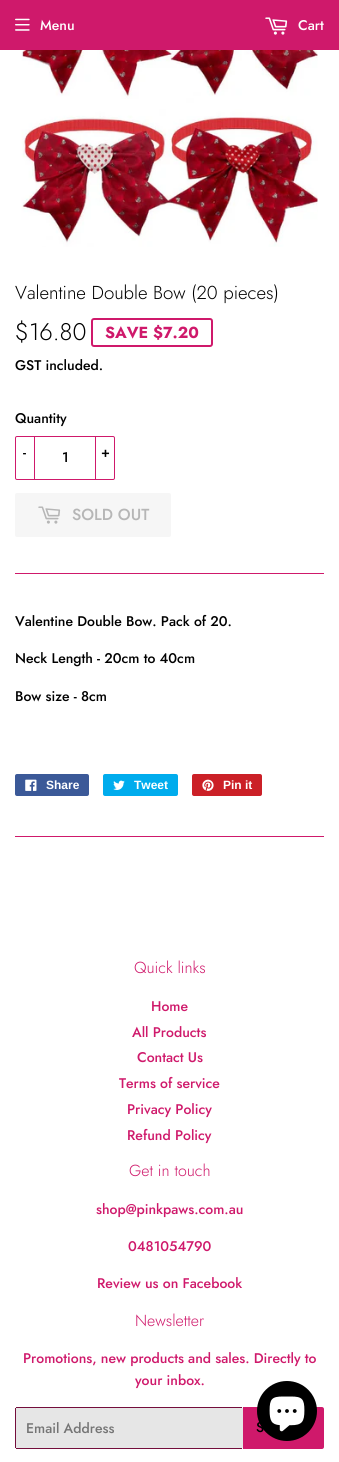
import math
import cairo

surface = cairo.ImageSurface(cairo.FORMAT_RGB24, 339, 1462)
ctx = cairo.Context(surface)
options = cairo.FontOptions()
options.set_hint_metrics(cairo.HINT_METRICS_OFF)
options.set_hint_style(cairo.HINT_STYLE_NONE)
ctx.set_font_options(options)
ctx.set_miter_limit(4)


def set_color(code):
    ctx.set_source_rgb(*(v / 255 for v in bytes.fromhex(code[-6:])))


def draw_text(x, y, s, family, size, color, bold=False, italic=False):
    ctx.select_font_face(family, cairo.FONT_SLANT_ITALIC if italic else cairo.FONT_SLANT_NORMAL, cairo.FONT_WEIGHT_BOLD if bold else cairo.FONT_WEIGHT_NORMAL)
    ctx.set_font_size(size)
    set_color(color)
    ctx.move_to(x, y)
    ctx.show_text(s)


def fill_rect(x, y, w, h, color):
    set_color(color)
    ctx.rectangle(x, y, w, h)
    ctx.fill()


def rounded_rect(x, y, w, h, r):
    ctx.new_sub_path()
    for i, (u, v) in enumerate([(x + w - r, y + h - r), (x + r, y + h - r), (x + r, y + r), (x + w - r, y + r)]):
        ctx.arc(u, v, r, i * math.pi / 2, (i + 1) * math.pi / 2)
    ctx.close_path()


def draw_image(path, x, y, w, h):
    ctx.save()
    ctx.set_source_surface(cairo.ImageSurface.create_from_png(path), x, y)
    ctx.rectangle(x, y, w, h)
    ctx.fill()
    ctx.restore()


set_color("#ffffff")
ctx.paint()
fill_rect(0, 0, 339, 50, "#cf196b")
draw_image("assets/img1.png", 15, 18, 15, 13)
draw_text(40, 30, "Menu", "Jost Medium", 14, "#ffffff")
draw_image("assets/img2.png", 265, 17, 23, 18)
draw_text(298, 30, "Cart", "Jost Medium", 14, "#ffffff")
draw_image("assets/img3.png", 21, 50, 297, 197)
draw_text(15, 299, "Valentine Double Bow (20 pieces)", "Jost Light", 18.7, "#000000")
draw_text(15, 340, "$16.80", "Jost Light", 24, "#000000")
rounded_rect(92, 319, 120, 27, 2)
set_color("#cf196b")
ctx.stroke()
draw_text(105, 338, "SAVE $7.20", "Jost", 16, "#cf196b", bold=True)
draw_text(15, 370, "GST included.", "Jost Medium", 14, "#000000")
draw_text(15, 423, "Quantity", "Jost Medium", 14, "#000000")
rounded_rect(15.5, 436.5, 99, 43, 1.5)
set_color("#cf196b")
ctx.set_line_width(1)
ctx.stroke()
fill_rect(34, 436, 1, 44, "#cf196b")
draw_text(23, 457, "-", "Jost Medium", 14, "#000000")
draw_text(62, 462, "1", "Jost Medium", 14, "#000000")
fill_rect(95, 436, 1, 44, "#cf196b")
draw_text(101, 457, "+", "Jost Medium", 14, "#000000")
set_color("#f6f6f6")
rounded_rect(15, 493, 156, 44, 2)
ctx.fill()
draw_image("assets/img4.png", 38, 506, 23, 18)
draw_text(72, 520, "SOLD OUT", "Jost Medium", 16, "#b6b6b6")
fill_rect(15, 573, 309, 1, "#cf196b")
draw_text(15, 626, "Valentine Double Bow. Pack of 20.", "Jost Medium", 14, "#000000")
draw_text(15, 663, "Neck Length - 20cm to 40cm", "Jost Medium", 14, "#000000")
draw_text(15, 701, "Bow size - 8cm", "Jost Medium", 14, "#000000")
set_color("#3b5998")
rounded_rect(15, 774, 74, 22, 2)
ctx.fill()
draw_image("assets/img5.png", 25, 779, 12, 12)
draw_text(46, 789, "Share", "Liberation Sans", 12, "#ffffff", bold=True)
set_color("#00aced")
rounded_rect(103, 774, 75, 22, 2)
ctx.fill()
draw_image("assets/img6.png", 113, 780, 12, 10)
draw_text(134, 789, "Tweet", "Liberation Sans", 12, "#ffffff", bold=True)
set_color("#cb2027")
rounded_rect(192, 774, 70, 22, 2)
ctx.fill()
draw_image("assets/img7.png", 202, 779, 12, 12)
draw_text(223, 789, "Pin it", "Liberation Sans", 12, "#ffffff", bold=True)
fill_rect(15, 836, 309, 1, "#cf196b")
draw_text(134, 973, "Quick links", "Jost Light", 16, "#cf196b")
draw_text(151, 1011, "Home", "Jost Medium", 14, "#cf196b")
draw_text(132, 1037, "All Products", "Jost Medium", 14, "#cf196b")
draw_text(137, 1062, "Contact Us", "Jost Medium", 14, "#cf196b")
draw_text(119, 1088, "Terms of service", "Jost Medium", 14, "#cf196b")
draw_text(127, 1114, "Privacy Policy", "Jost Medium", 14, "#cf196b")
draw_text(127, 1140, "Refund Policy", "Jost Medium", 14, "#cf196b")
draw_text(129, 1176, "Get in touch", "Jost Light", 16, "#cf196b")
draw_text(96, 1214, "shop@pinkpaws.com.au", "Jost Medium", 14, "#cf196b")
draw_text(128, 1251, "0481054790", "Jost Medium", 14, "#cf196b")
draw_text(97, 1288, "Review us on Facebook", "Jost Medium", 14, "#cf196b")
draw_text(135, 1326, "Newsletter", "Jost Light", 16, "#cf196b")
draw_text(23, 1363, "Promotions, new products and sales. Directly to", "Jost Medium", 14, "#cf196b")
draw_text(135, 1385, "your inbox.", "Jost Medium", 14, "#cf196b")
set_color("#e6e6e6")
rounded_rect(15, 1407, 228, 42, 2)
ctx.fill()
fill_rect(16, 1407, 226, 1, "#740e3c")
fill_rect(16, 1448, 226, 1, "#740e3c")
fill_rect(15, 1408, 1, 40, "#740e3c")
draw_text(26, 1433, "Email Address", "Jost Medium", 14, "#757575")
set_color("#cf196b")
ctx.new_path()
ctx.move_to(243, 1407)
ctx.line_to(322, 1407)
ctx.curve_to(323, 1407, 324, 1408, 324, 1409)
ctx.line_to(324, 1447)
ctx.curve_to(324, 1448, 323, 1449, 322, 1449)
ctx.line_to(243, 1449)
ctx.close_path()
ctx.fill()
draw_text(256, 1432, "S", "Jost Medium", 14, "#000000")
ctx.new_path()
ctx.arc(287, 1411, 30, 0, 2 * math.pi)
ctx.fill()
draw_image("assets/img8.png", 269, 1396, 36, 36)
surface.write_to_png("output.png")
